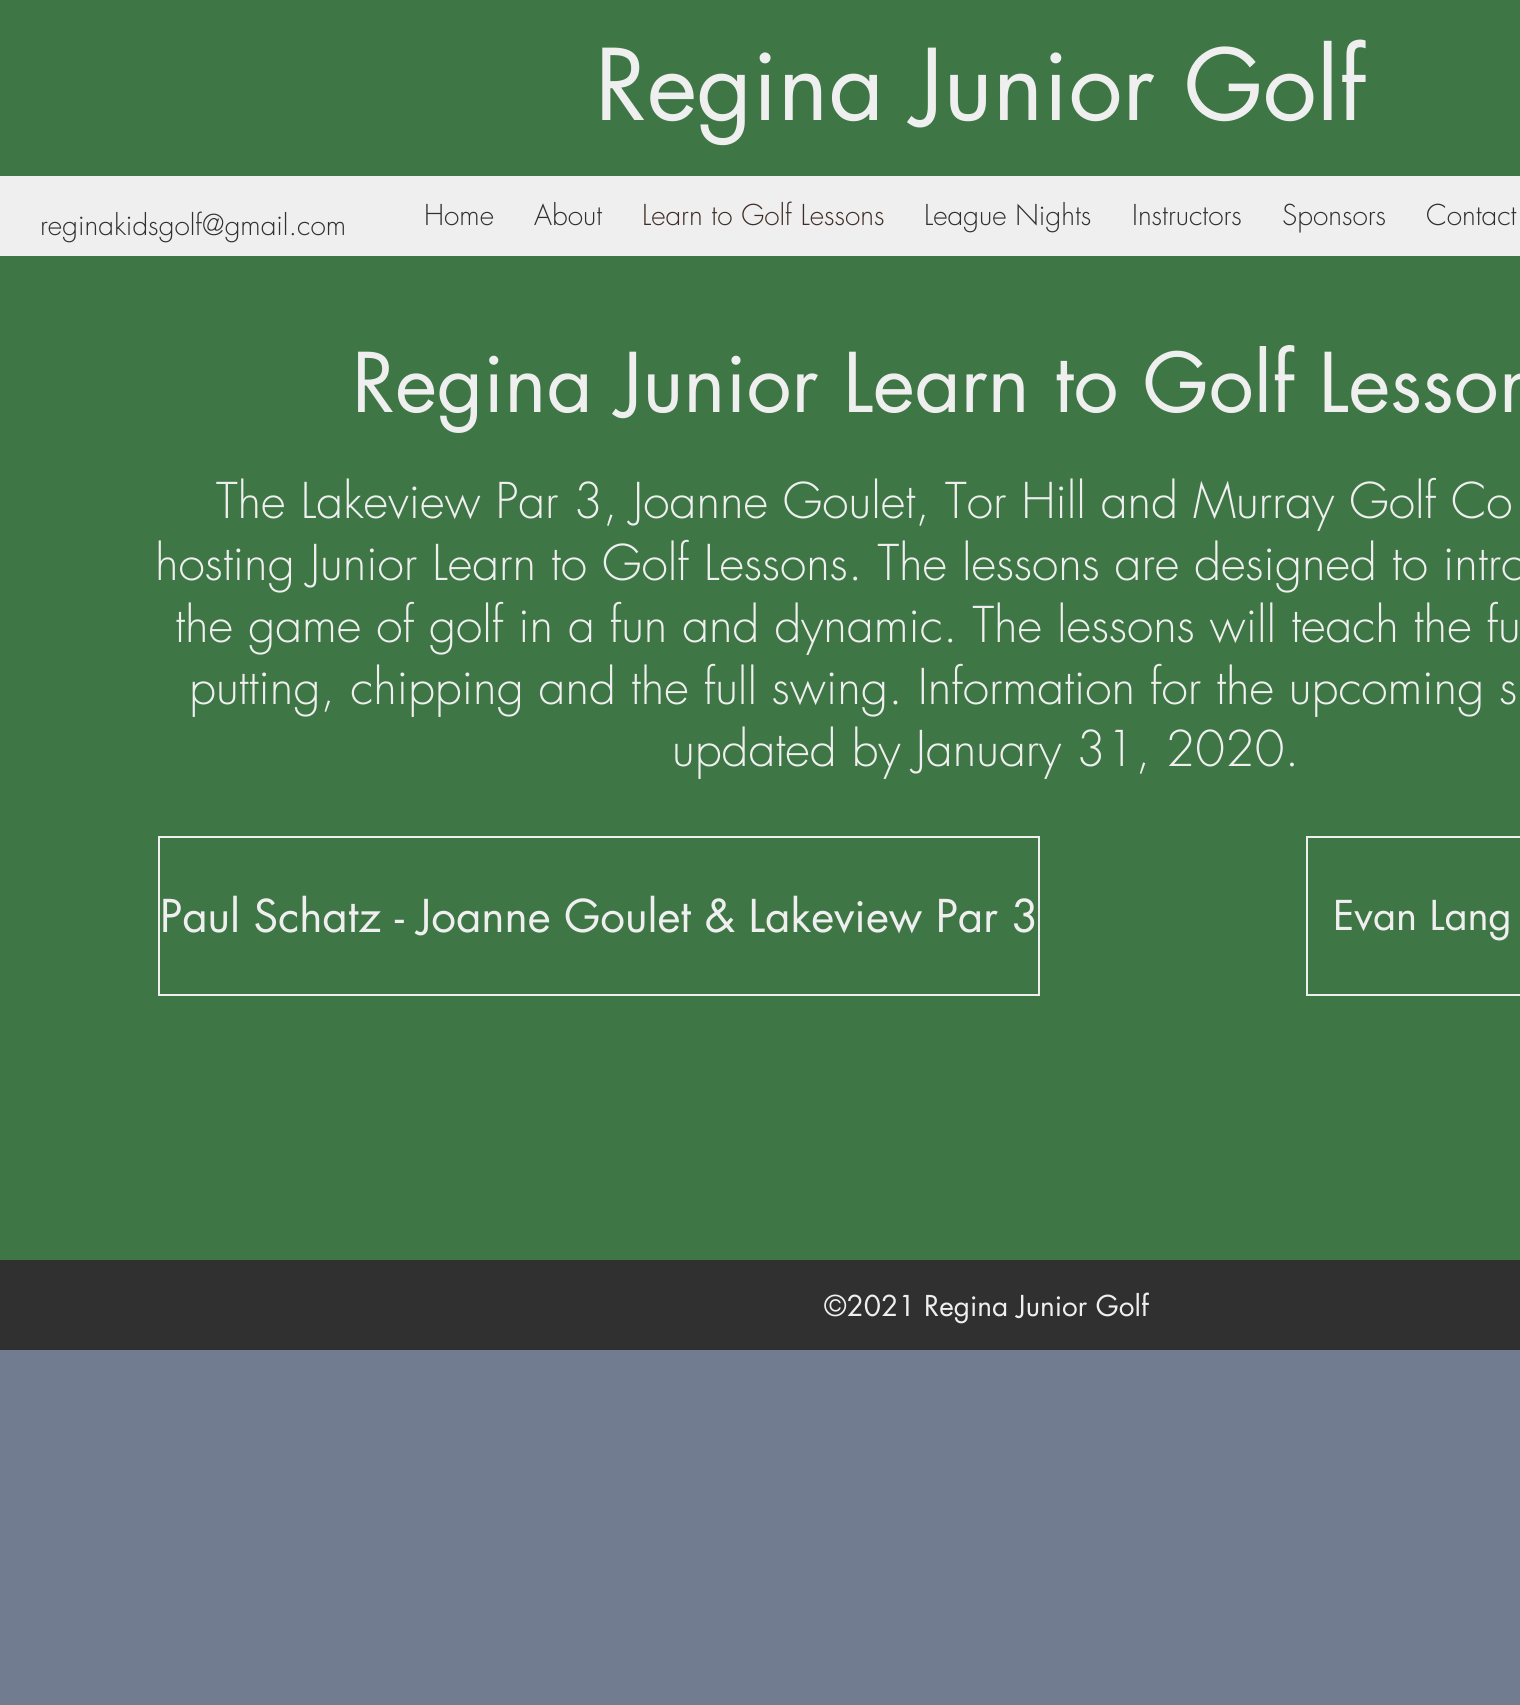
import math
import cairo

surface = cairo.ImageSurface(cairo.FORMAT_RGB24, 1520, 1705)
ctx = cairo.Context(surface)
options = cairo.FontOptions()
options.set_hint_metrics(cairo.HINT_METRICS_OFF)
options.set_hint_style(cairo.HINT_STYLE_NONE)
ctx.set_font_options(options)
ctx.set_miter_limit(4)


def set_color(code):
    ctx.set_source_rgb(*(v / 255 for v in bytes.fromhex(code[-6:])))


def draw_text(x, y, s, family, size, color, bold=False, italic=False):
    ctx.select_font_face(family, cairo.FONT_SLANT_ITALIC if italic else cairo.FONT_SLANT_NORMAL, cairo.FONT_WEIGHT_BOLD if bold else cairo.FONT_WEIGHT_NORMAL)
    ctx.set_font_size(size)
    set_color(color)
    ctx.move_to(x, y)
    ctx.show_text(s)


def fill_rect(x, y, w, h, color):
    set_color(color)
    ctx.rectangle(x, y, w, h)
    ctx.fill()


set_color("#727c90")
ctx.paint()
fill_rect(0, 0, 1520, 1260, "#3e7745")
draw_text(595, 120, "Regina Junior Golf", "futura", 96, "#efefef")
fill_rect(0, 176, 1520, 80, "#efefef")
draw_text(40, 235, "reginakidsgolf@gmail.com", "futura Light", 28, "#303030")
draw_text(424, 225, "Home", "futura Light", 28, "#303030")
draw_text(534, 225, "About", "futura Light", 28, "#303030")
draw_text(642, 225, "Learn to Golf Lessons", "futura Light", 28, "#3f2d26")
draw_text(924, 225, "League Nights", "futura Light", 28, "#303030")
draw_text(1132, 225, "Instructors", "futura Light", 28, "#303030")
draw_text(1282, 225, "Sponsors", "futura Light", 28, "#303030")
draw_text(1426, 225, "Contact", "futura Light", 28, "#303030")
draw_text(352, 412, "Regina Junior Learn to Golf Lesson", "futura", 80, "#efefef")
draw_text(216, 518, "The Lakeview Par 3, Joanne Goulet, Tor Hill and Murray Golf Co", "futura Light", 48, "#efefef")
draw_text(155, 580, "hosting Junior Learn to Golf Lessons. The lessons are designed to intro", "futura Light", 48, "#efefef")
draw_text(175, 642, "the game of golf in a fun and dynamic. The lessons will teach the fu", "futura Light", 48, "#efefef")
draw_text(189, 704, "putting, chipping and the full swing. Information for the upcoming s", "futura Light", 48, "#efefef")
draw_text(672, 766, "updated by January 31, 2020.", "futura Light", 48, "#efefef")
ctx.rectangle(159, 837, 880, 158)
ctx.stroke()
draw_text(160, 932, "Paul Schatz - Joanne Goulet & Lakeview Par 3", "futura", 44, "#efefef")
ctx.rectangle(1307, 837, 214, 158)
ctx.stroke()
draw_text(1333, 930, "Evan Lang", "futura", 40, "#efefef")
fill_rect(0, 1260, 1520, 90, "#303030")
draw_text(824, 1316, "©2021 Regina Junior Golf", "futura", 28, "#efefef")
surface.write_to_png("output.png")
